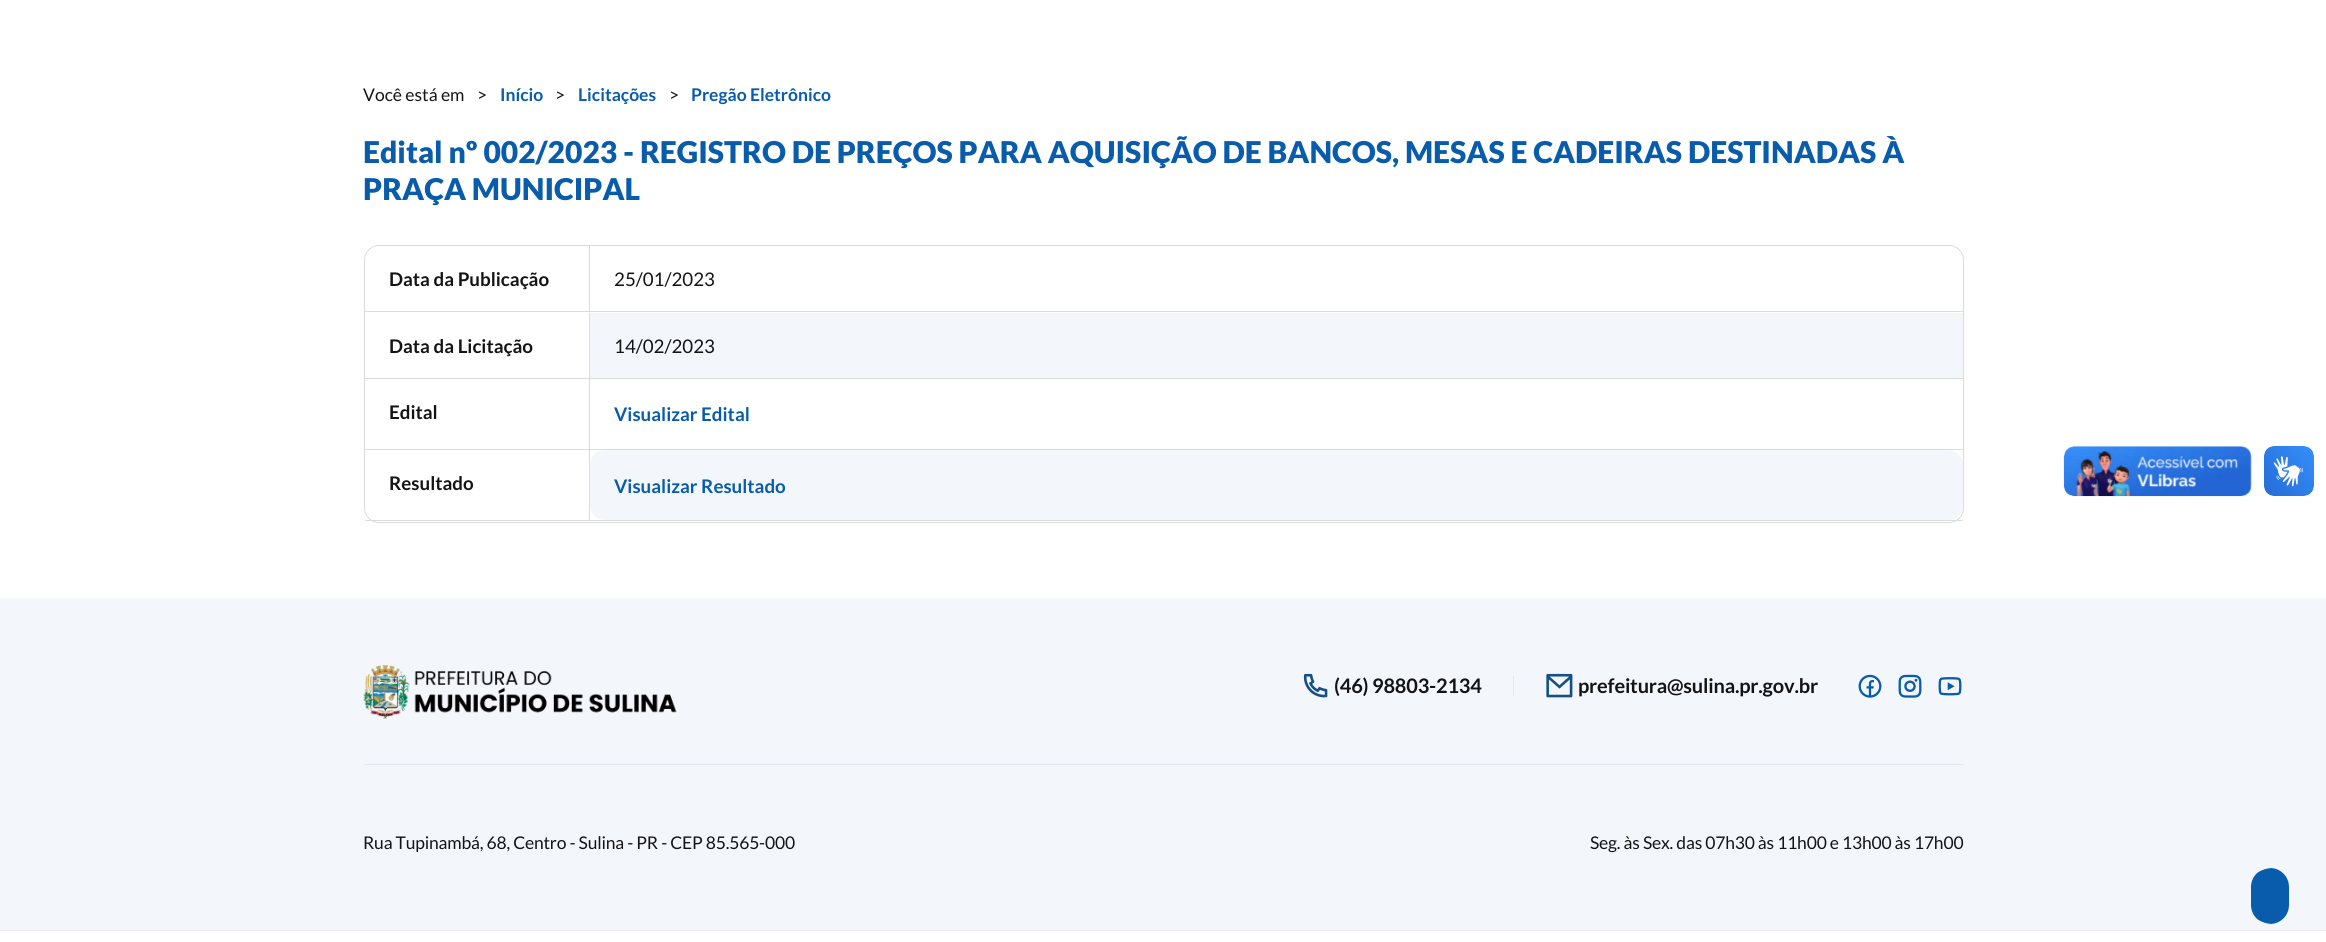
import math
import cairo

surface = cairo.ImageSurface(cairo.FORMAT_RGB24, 2326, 942)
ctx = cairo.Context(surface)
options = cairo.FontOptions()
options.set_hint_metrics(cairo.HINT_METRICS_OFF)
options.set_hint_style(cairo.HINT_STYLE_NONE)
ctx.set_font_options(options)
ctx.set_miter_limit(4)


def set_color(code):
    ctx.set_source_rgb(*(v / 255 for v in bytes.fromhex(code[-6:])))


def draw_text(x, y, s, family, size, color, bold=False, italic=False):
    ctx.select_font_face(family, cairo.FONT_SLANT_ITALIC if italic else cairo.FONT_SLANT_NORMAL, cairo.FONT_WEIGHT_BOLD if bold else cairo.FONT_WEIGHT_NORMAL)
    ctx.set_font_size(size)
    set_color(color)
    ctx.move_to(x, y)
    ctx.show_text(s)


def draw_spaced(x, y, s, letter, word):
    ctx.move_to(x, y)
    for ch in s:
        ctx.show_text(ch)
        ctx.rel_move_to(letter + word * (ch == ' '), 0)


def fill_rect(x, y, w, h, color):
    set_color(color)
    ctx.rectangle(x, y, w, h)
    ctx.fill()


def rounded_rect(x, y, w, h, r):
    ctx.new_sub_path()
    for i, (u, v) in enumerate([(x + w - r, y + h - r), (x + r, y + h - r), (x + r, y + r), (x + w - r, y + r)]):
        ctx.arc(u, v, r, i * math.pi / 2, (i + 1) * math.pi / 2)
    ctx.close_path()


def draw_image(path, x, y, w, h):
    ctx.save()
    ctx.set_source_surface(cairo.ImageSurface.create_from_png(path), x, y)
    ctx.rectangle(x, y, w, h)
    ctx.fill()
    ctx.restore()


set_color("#ffffff")
ctx.paint()
draw_text(363, 101, "Você está em", "Lato", 17.5, "#141414")
draw_text(477, 101, ">", "Lato", 17.5, "#141414")
draw_text(500, 101, "Início", "Lato", 17.5, "#085cab", bold=True)
draw_text(555, 101, ">", "Lato", 17.5, "#141414")
draw_text(578, 101, "Licitações", "Lato", 17.5, "#085cab", bold=True)
draw_text(669, 101, ">", "Lato", 17.5, "#141414")
draw_text(691, 101, "Pregão Eletrônico", "Lato", 17.5, "#085cab", bold=True)
draw_text(363, 163, "Edital nº 002/2023 - REGISTRO DE PREÇOS PARA AQUISIÇÃO DE BANCOS, MESAS E CADEIRAS DESTINADAS À", "Lato Black", 30, "#085cab")
draw_text(363, 200, "PRAÇA MUNICIPAL", "Lato Black", 30, "#085cab")
rounded_rect(364.5, 245.5, 1599, 277, 14.5)
set_color("#dbdbdb")
ctx.set_line_width(1)
ctx.stroke()
fill_rect(365, 311, 1598, 1, "#dbdbdb")
fill_rect(589, 246, 1, 65, "#dbdbdb")
draw_text(389, 286, "Data da Publicação", "Lato", 18.75, "#141414", bold=True)
draw_text(614, 286, "25/01/2023", "Lato", 18.75, "#141414")
fill_rect(365, 378, 1598, 1, "#dbdbdb")
fill_rect(589, 313, 1, 65, "#dbdbdb")
draw_text(389, 353, "Data da Licitação", "Lato", 18.75, "#141414", bold=True)
fill_rect(590, 313, 1373, 65, "#f3f6fb")
draw_text(614, 353, "14/02/2023", "Lato", 18.75, "#141414")
fill_rect(365, 449, 1598, 1, "#dbdbdb")
fill_rect(589, 379, 1, 70, "#dbdbdb")
draw_text(389, 419, "Edital", "Lato", 18.75, "#141414", bold=True)
draw_text(614, 421, "Visualizar Edital", "Lato", 18.75, "#085cab", bold=True)
fill_rect(365, 520, 1598, 1, "#dbdbdb")
fill_rect(589, 450, 1, 70, "#dbdbdb")
draw_text(389, 490, "Resultado", "Lato", 18.75, "#141414", bold=True)
set_color("#f3f6fb")
rounded_rect(590, 450, 1373, 70, 15)
ctx.fill()
draw_text(614, 493, "Visualizar Resultado", "Lato", 18.75, "#085cab", bold=True)
draw_image("assets/img1.png", 2063, 446, 189, 51)
draw_image("assets/img2.png", 2264, 446, 50, 50)
fill_rect(0, 598, 2326, 332, "#f3f6fb")
draw_image("assets/img3.png", 363, 665, 314, 54)
draw_image("assets/img4.png", 1303, 673, 25, 25)
ctx.set_font_size(20)
set_color("#141414")
draw_spaced(1334, 693, "(46) 98803-2134", -0.2, 0)
fill_rect(1513, 676, 1, 20, "#e4e6f1")
draw_image("assets/img5.png", 1546, 673, 27, 25)
set_color("#141414")
draw_spaced(1578, 693, "prefeitura@sulina.pr.gov.br", -0.2, 0)
draw_image("assets/img6.png", 1858, 674, 24, 24)
draw_image("assets/img7.png", 1898, 674, 24, 24)
draw_image("assets/img8.png", 1938, 677, 24, 19)
fill_rect(364, 764, 1600, 1, "#e4e6f1")
ctx.select_font_face("Lato")
ctx.set_font_size(17.5)
set_color("#141414")
draw_spaced(363, 849, "Rua Tupinambá, 68, Centro - Sulina - PR - CEP 85.565-000", -0.18, 0)
draw_spaced(1590, 849, "Seg. às Sex. das 07h30 às 11h00 e 13h00 às 17h00", -0.18, 0)
ctx.save()
rounded_rect(2245, 868, 69, 56, 28)
ctx.clip()
set_color("#085cab")
rounded_rect(2251, 868, 38, 56, 19)
ctx.fill()
ctx.restore()
fill_rect(0, 930, 2326, 1, "#ececec")
surface.write_to_png("output.png")
